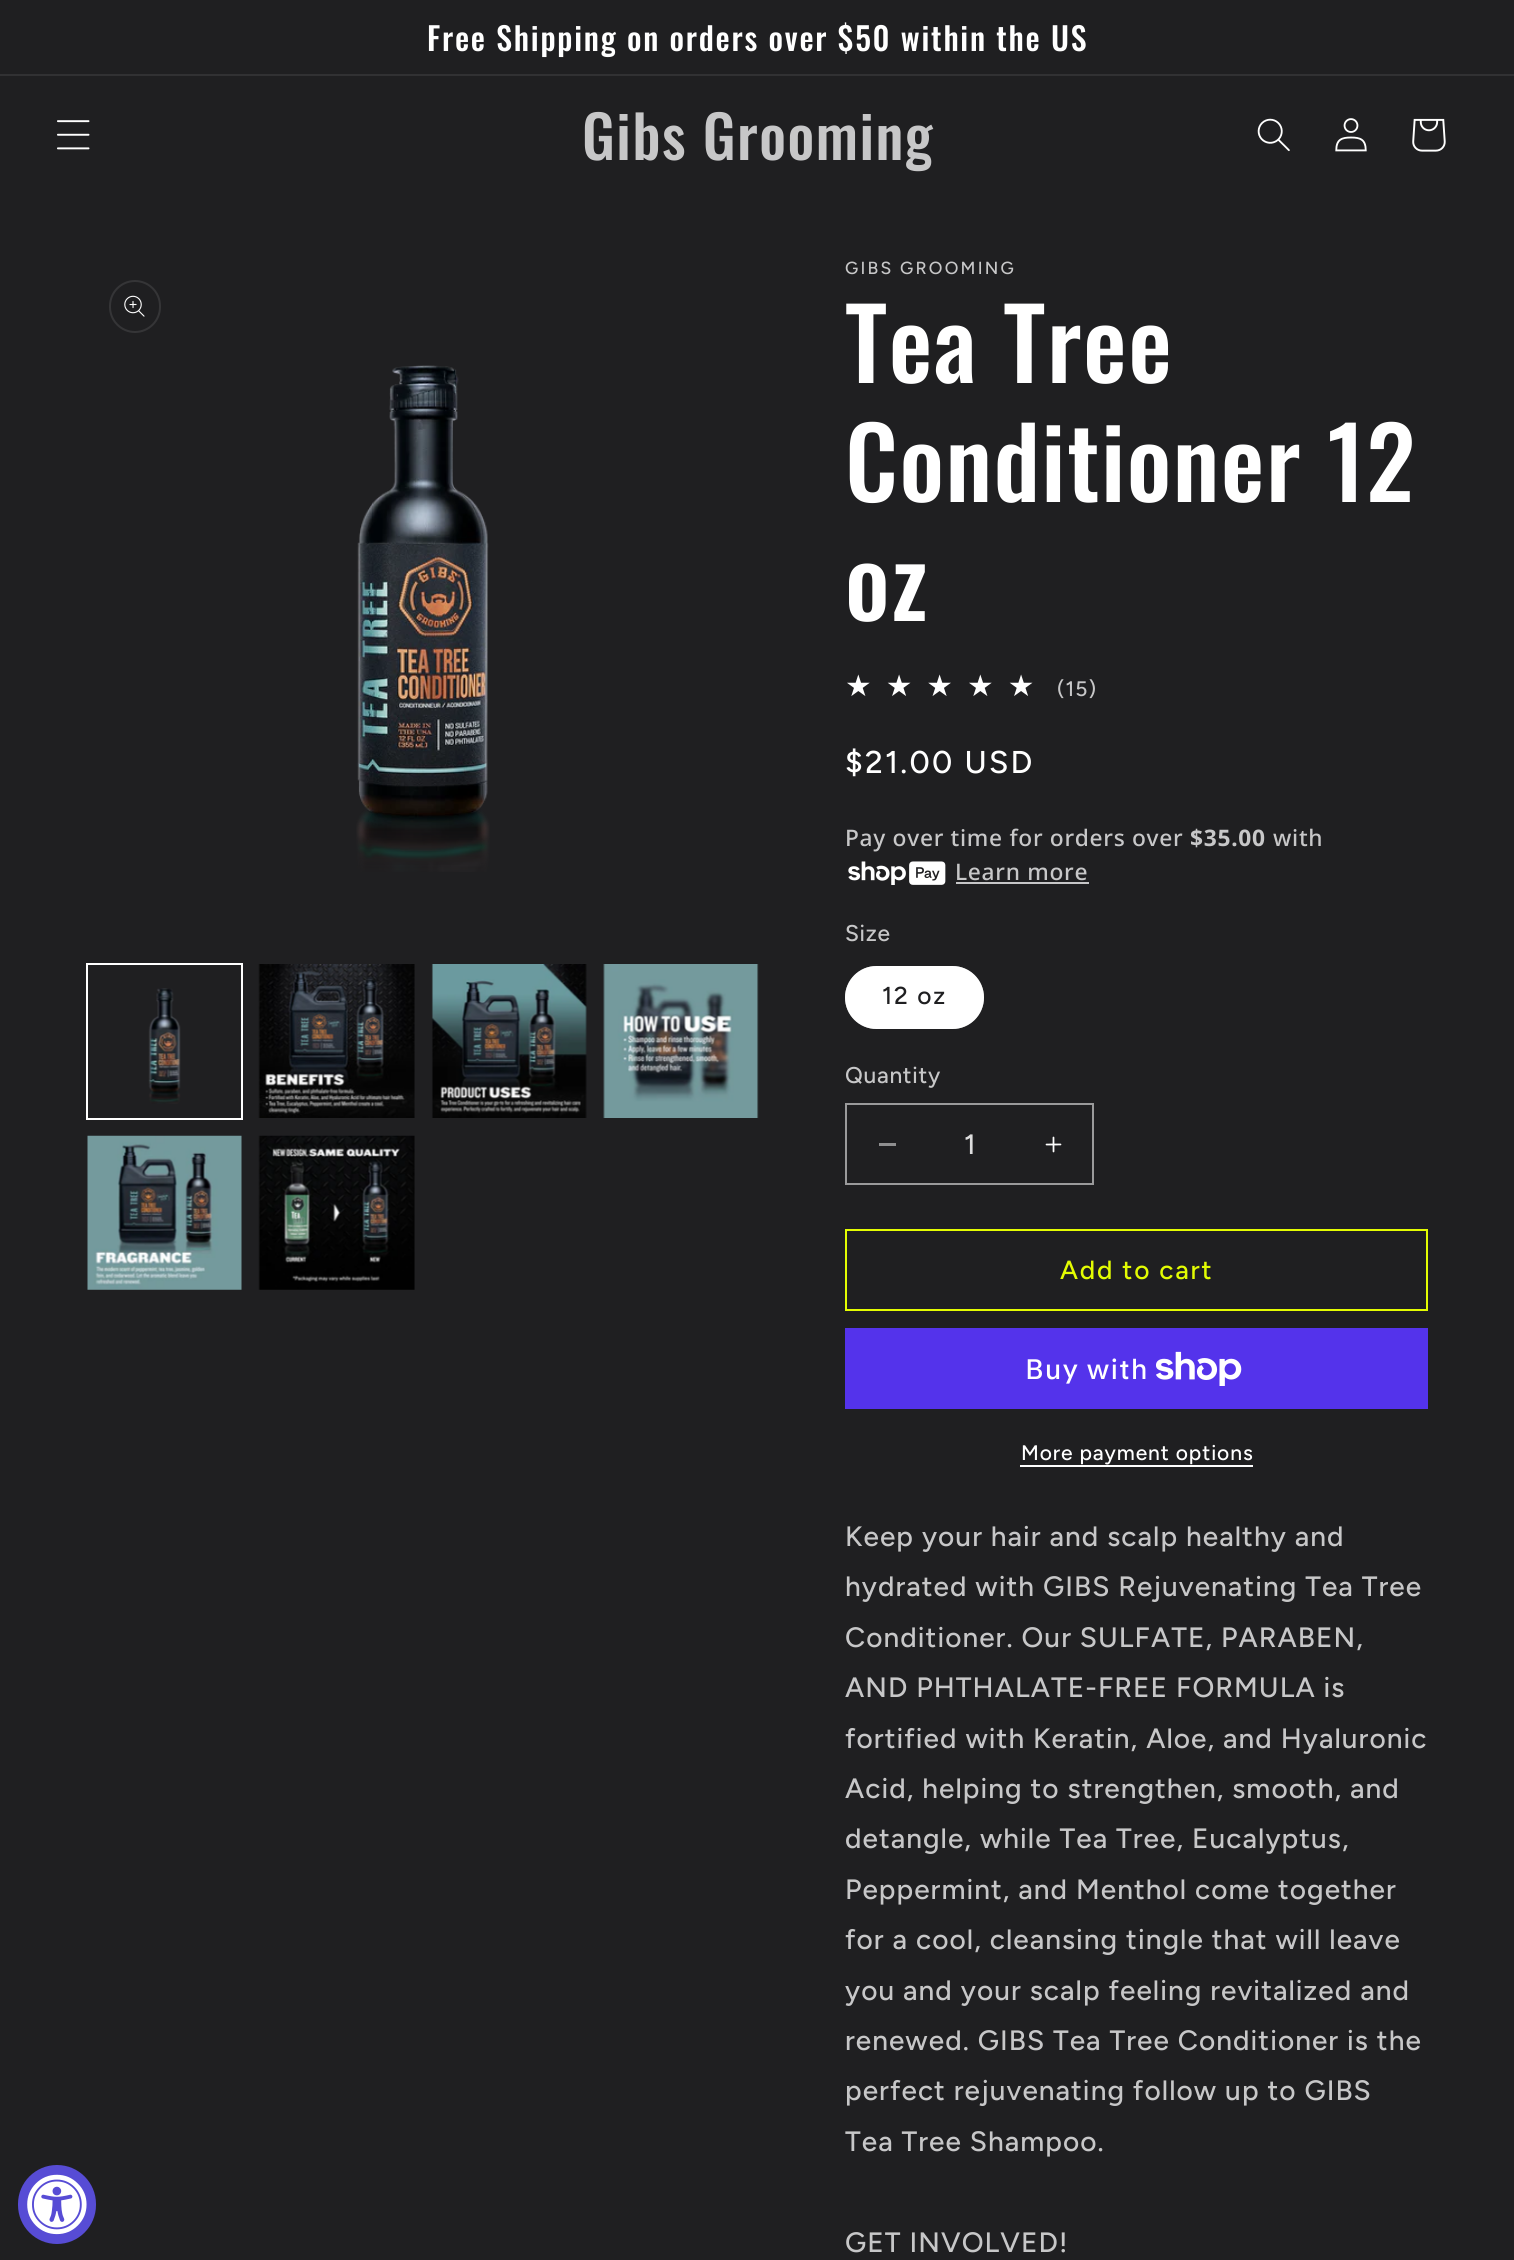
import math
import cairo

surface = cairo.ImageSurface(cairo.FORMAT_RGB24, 1514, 2260)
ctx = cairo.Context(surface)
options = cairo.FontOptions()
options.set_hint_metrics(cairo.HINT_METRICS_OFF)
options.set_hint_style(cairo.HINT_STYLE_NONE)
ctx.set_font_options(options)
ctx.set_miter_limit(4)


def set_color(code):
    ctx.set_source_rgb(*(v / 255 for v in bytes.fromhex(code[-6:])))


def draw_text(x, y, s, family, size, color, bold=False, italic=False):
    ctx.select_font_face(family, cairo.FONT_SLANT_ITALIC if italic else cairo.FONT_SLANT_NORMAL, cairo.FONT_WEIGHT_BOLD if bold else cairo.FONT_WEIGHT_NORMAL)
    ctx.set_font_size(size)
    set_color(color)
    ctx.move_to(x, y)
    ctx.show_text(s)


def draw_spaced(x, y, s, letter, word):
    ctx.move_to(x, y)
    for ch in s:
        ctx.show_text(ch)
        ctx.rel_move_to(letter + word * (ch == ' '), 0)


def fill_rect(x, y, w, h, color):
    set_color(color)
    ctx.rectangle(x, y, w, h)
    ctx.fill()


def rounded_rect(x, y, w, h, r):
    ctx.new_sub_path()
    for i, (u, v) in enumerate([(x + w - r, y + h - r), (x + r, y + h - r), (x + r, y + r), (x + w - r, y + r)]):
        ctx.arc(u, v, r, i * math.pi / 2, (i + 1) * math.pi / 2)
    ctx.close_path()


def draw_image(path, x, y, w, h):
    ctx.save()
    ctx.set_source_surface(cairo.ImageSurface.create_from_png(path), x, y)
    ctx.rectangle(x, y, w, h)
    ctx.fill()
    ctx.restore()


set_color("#1f1f21")
ctx.paint()
fill_rect(0, 74, 1514, 2, "#313133")
ctx.select_font_face("Oswald Medium")
ctx.set_font_size(31.85)
set_color("#ffffff")
draw_spaced(427, 51, "Free Shipping on orders over $50 within the US", 1.75, 0)
draw_image("assets/img1.png", 57, 120, 33, 30)
ctx.set_font_size(58.75)
set_color("#c7c7c8")
draw_spaced(582, 160, "Gibs Grooming", 1.5, 0)
draw_image("assets/img2.png", 1257, 118, 33, 34)
draw_image("assets/img3.png", 1335, 118, 32, 34)
draw_image("assets/img4.png", 1412, 118, 34, 34)
set_color("#574cd5")
rounded_rect(18, 2165, 78, 79, 39)
ctx.fill()
draw_image("assets/img5.png", 27, 2174, 60, 61)
rounded_rect(110, 281, 50, 51, 25)
set_color("#353537")
ctx.stroke()
draw_image("assets/img6.png", 124, 295, 21, 22)
draw_image("assets/img7.png", 356, 365, 134, 507)
ctx.rectangle(87, 964, 155, 155)
set_color("#ffffff")
ctx.stroke()
draw_image("assets/img8.png", 148, 988, 33, 116)
draw_image("assets/img9.png", 258, 964, 157, 154)
draw_image("assets/img10.png", 431, 964, 156, 154)
draw_image("assets/img11.png", 603, 964, 156, 154)
draw_image("assets/img12.png", 87, 1135, 155, 155)
draw_image("assets/img13.png", 258, 1135, 157, 155)
ctx.select_font_face("Figtree Medium")
ctx.set_font_size(17.5)
set_color("#c7c7c8")
draw_spaced(845, 274, "GIBS GROOMING", 2.25, 0)
ctx.select_font_face("Oswald Medium")
ctx.set_font_size(98)
set_color("#ffffff")
draw_spaced(845, 383, "Tea Tree", 1.5, 0)
draw_spaced(845, 502, "Conditioner 12", 1.5, 0)
draw_spaced(845, 621, "oz", 1.5, 0)
ctx.select_font_face("DejaVu Sans")
ctx.set_font_size(29.75)
gradient = cairo.LinearGradient(845, 686, 1049, 686)
gradient.add_color_stop_rgba(0.94, 1, 1, 1, 1)
gradient.add_color_stop_rgba(0.94, 0.255, 0.255, 0.259, 1)
ctx.set_source(gradient)
draw_spaced(845, 696, "★★★★★", 14, 0)
ctx.select_font_face("Figtree Medium")
ctx.set_font_size(21)
set_color("#c7c7c8")
draw_spaced(1057, 696, "(15)", 1, 0)
ctx.set_font_size(31.5)
set_color("#ffffff")
draw_spaced(845, 773, "$21.00 USD", 2.25, 0)
ctx.select_font_face("Noto Sans Medium")
ctx.set_font_size(22.75)
set_color("#c7c7c8")
draw_spaced(845, 846, "Pay over time for orders over", 0.7, 0)
ctx.select_font_face("Noto Sans", cairo.FONT_SLANT_NORMAL, cairo.FONT_WEIGHT_BOLD)
draw_spaced(1190, 846, "$35.00", 0.7, 0)
ctx.select_font_face("Noto Sans Medium")
draw_spaced(1273, 846, "with", 0.7, 0)
draw_image("assets/img14.png", 848, 861, 98, 24)
draw_spaced(955, 880, "Learn more", 0.7, 0)
fill_rect(956, 882, 133, 2, "#c7c7c8")
ctx.select_font_face("Figtree Medium")
draw_spaced(845, 941, "Size", 0.7, 0)
set_color("#ffffff")
rounded_rect(845, 966, 139, 63, 31.5)
ctx.fill()
rounded_rect(846, 967, 137, 61, 30.5)
ctx.set_source_rgba(1, 1, 1, 0.55)
ctx.stroke()
ctx.set_font_size(24.5)
set_color("#1f1f21")
draw_spaced(882, 1004, "12 oz", 1.75, 0)
ctx.set_font_size(22.75)
set_color("#c7c7c8")
draw_spaced(845, 1083, "Quantity", 0.7, 0)
fill_rect(879, 1143, 17, 3, "#8f8f90")
draw_image("assets/img15.png", 1045, 1136, 17, 17)
ctx.rectangle(846, 1104, 247, 80)
set_color("#9a9a9b")
ctx.stroke()
draw_text(964, 1154, "1", "Figtree Medium", 28, "#ddddde")
ctx.rectangle(846, 1230, 581, 80)
set_color("#e3fc02")
ctx.stroke()
ctx.set_font_size(26.25)
draw_spaced(1060, 1279, "Add to cart", 1.75, 0)
fill_rect(845, 1328, 583, 81, "#5433eb")
ctx.select_font_face("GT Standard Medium")
ctx.set_font_size(28)
set_color("#ffffff")
draw_spaced(1025, 1379, "Buy with", 1.05, 0)
draw_image("assets/img16.png", 1156, 1351, 86, 35)
ctx.select_font_face("Figtree Medium")
ctx.set_font_size(21)
draw_spaced(1021, 1460, "More payment options", 0.9, 0)
fill_rect(1020, 1465, 233, 2, "#ffffff")
ctx.set_font_size(28)
set_color("#c7c7c8")
draw_spaced(845, 1546, "Keep your hair and scalp healthy and", 1.05, 0)
draw_spaced(845, 1596, "hydrated with GIBS Rejuvenating Tea Tree", 1.05, 0)
draw_spaced(845, 1647, "Conditioner. Our SULFATE, PARABEN,", 1.05, 0)
draw_spaced(845, 1697, "AND PHTHALATE-FREE FORMULA is", 1.05, 0)
draw_spaced(845, 1748, "fortified with Keratin, Aloe, and Hyaluronic", 1.05, 0)
draw_spaced(845, 1798, "Acid, helping to strengthen, smooth, and", 1.05, 0)
draw_spaced(845, 1848, "detangle, while Tea Tree, Eucalyptus,", 1.05, 0)
draw_spaced(845, 1899, "Peppermint, and Menthol come together", 1.05, 0)
draw_spaced(845, 1949, "for a cool, cleansing tingle that will leave", 1.05, 0)
draw_spaced(845, 2000, "you and your scalp feeling revitalized and", 1.05, 0)
draw_spaced(845, 2050, "renewed. GIBS Tea Tree Conditioner is the", 1.05, 0)
draw_spaced(845, 2100, "perfect rejuvenating follow up to GIBS", 1.05, 0)
draw_spaced(845, 2151, "Tea Tree Shampoo.", 1.05, 0)
draw_spaced(845, 2252, "GET INVOLVED!", 1.05, 0)
surface.write_to_png("output.png")
